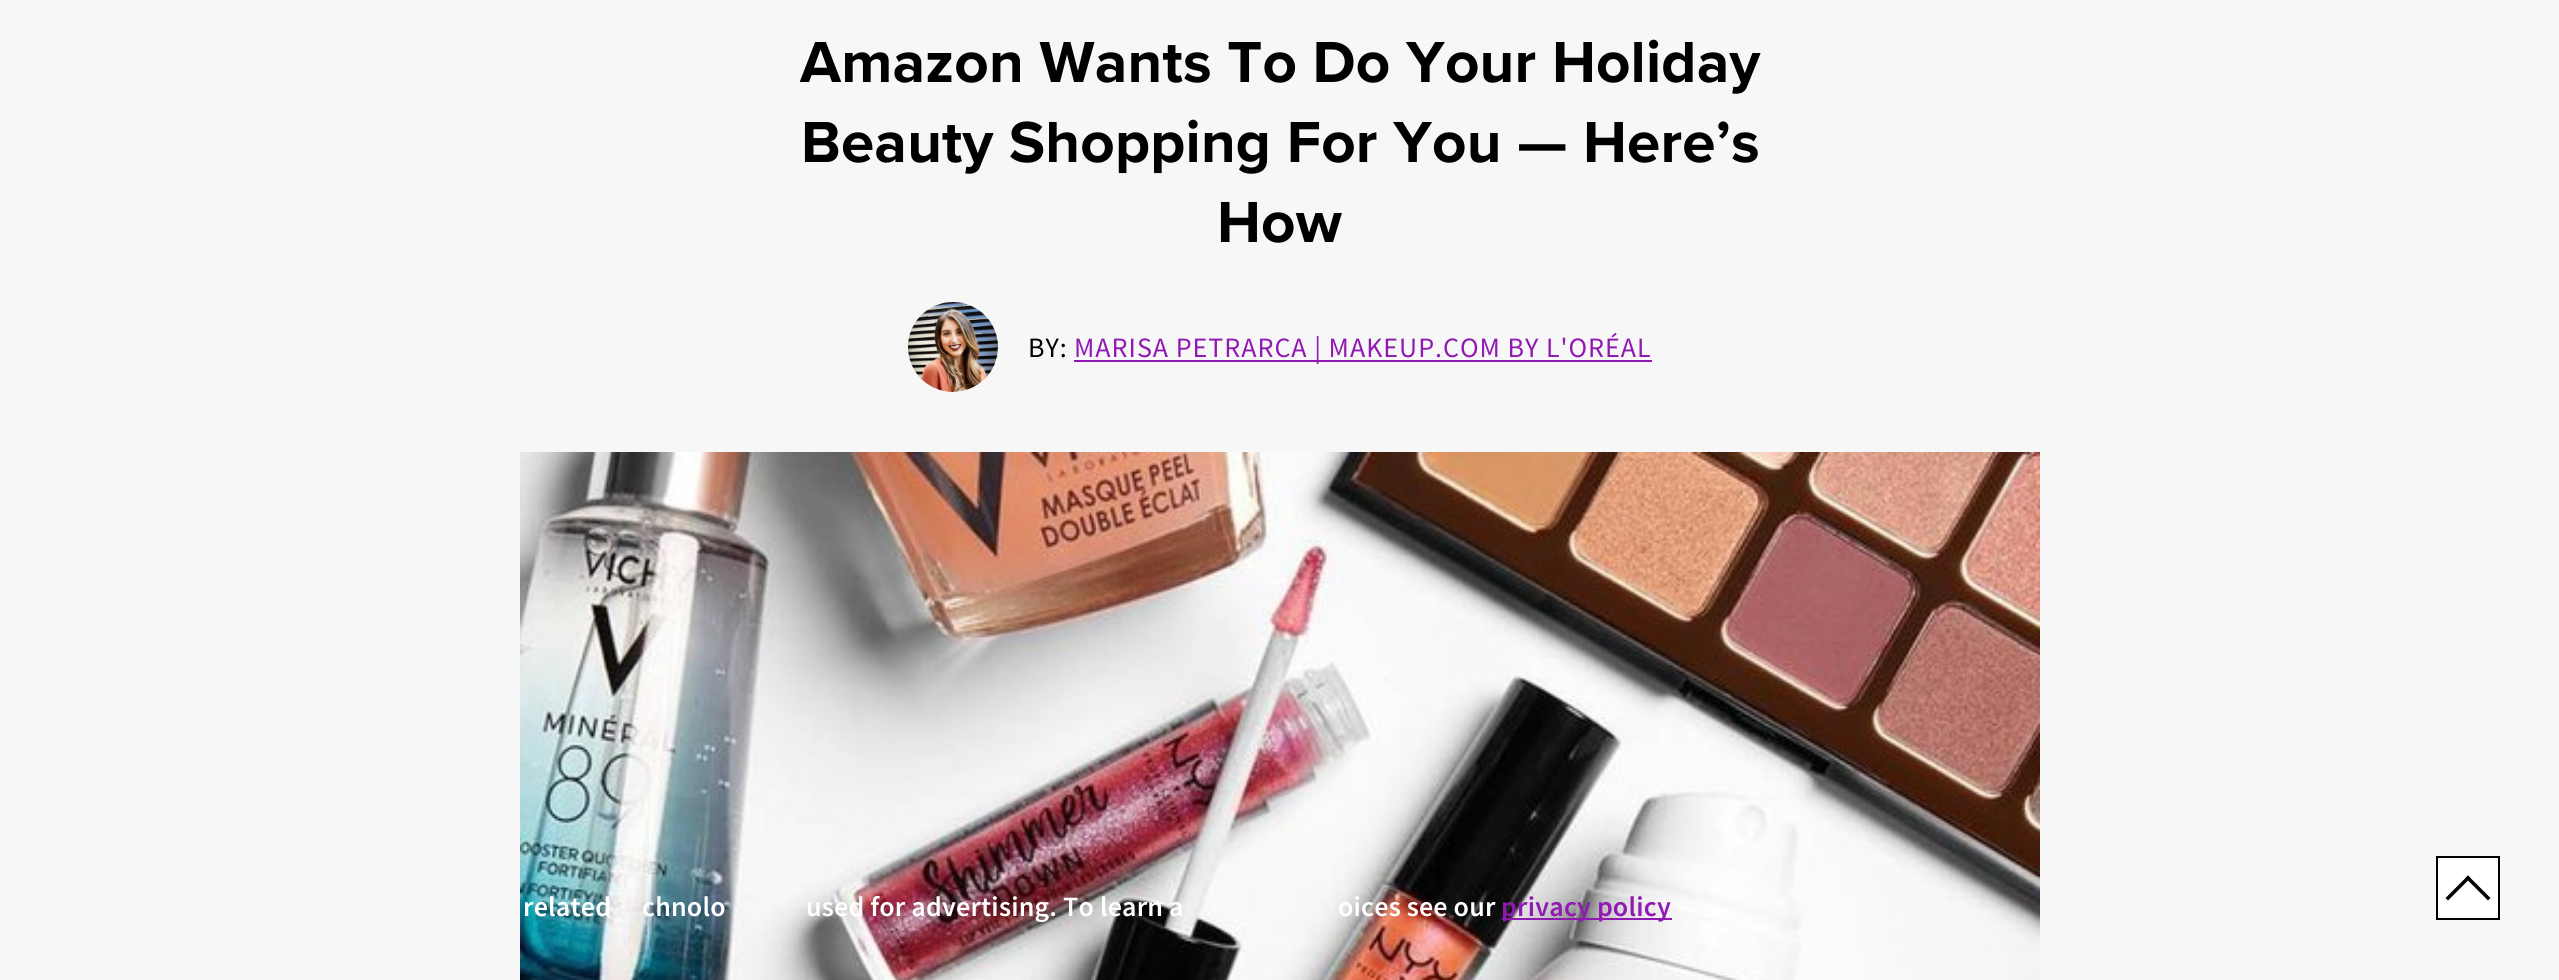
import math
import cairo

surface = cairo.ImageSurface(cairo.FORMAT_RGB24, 2559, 980)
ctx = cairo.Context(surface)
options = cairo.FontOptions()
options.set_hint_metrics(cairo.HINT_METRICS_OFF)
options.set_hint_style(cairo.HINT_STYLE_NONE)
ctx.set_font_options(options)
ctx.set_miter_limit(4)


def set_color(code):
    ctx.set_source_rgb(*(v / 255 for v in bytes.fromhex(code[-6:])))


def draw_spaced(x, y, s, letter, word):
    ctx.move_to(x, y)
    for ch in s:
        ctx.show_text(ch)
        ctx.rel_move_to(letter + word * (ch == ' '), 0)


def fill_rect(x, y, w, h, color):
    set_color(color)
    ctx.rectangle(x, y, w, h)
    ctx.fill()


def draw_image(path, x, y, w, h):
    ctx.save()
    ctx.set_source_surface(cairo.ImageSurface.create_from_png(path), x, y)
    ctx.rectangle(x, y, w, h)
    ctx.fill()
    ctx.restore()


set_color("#f7f7f7")
ctx.paint()
ctx.select_font_face("Proxima Nova", cairo.FONT_SLANT_NORMAL, cairo.FONT_WEIGHT_BOLD)
ctx.set_font_size(60)
set_color("#000000")
draw_spaced(800, 82, "Amazon Wants To Do Your Holiday", 0.2, 0)
draw_spaced(801, 162, "Beauty Shopping For You — Here’s", 0.2, 0)
draw_spaced(1217, 242, "How", 0.2, 0)
draw_image("assets/img1.png", 908, 302, 90, 90)
ctx.select_font_face("Source Sans Pro")
ctx.set_font_size(28)
draw_spaced(1028, 357, "BY:", 1, 0)
fill_rect(1074, 360, 578, 2, "#9119b3")
draw_spaced(1074, 357, "MARISA PETRARCA | MAKEUP.COM BY L'ORÉAL", 1, 0)
draw_image("assets/img2.png", 520, 452, 1520, 528)
set_color("#ffffff")
ctx.rectangle(2437, 857, 62, 62)
ctx.fill_preserve()
set_color("#000000")
ctx.stroke()
ctx.new_path()
ctx.move_to(2465.5, 878)
ctx.line_to(2468, 875.5)
ctx.line_to(2490.5, 898)
ctx.line_to(2488, 900.5)
ctx.close_path()
ctx.fill()
ctx.new_path()
ctx.move_to(2468, 875.5)
ctx.line_to(2470.5, 878)
ctx.line_to(2448, 900.5)
ctx.line_to(2445.5, 898)
ctx.close_path()
ctx.fill()
ctx.select_font_face("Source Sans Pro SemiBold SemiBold")
set_color("#ffffff")
draw_spaced(523, 916, "related", 0.2, 0)
draw_spaced(642, 916, "chnolo", 0.2, 0)
draw_spaced(806, 916, "used for advertising. To learn a", 0.2, 0)
draw_spaced(1338, 916, "oices see our", 0.2, 0)
fill_rect(1502, 918, 170, 2, "#9119b3")
draw_spaced(1501, 916, "privacy policy", 0.2, 0)
surface.write_to_png("output.png")
